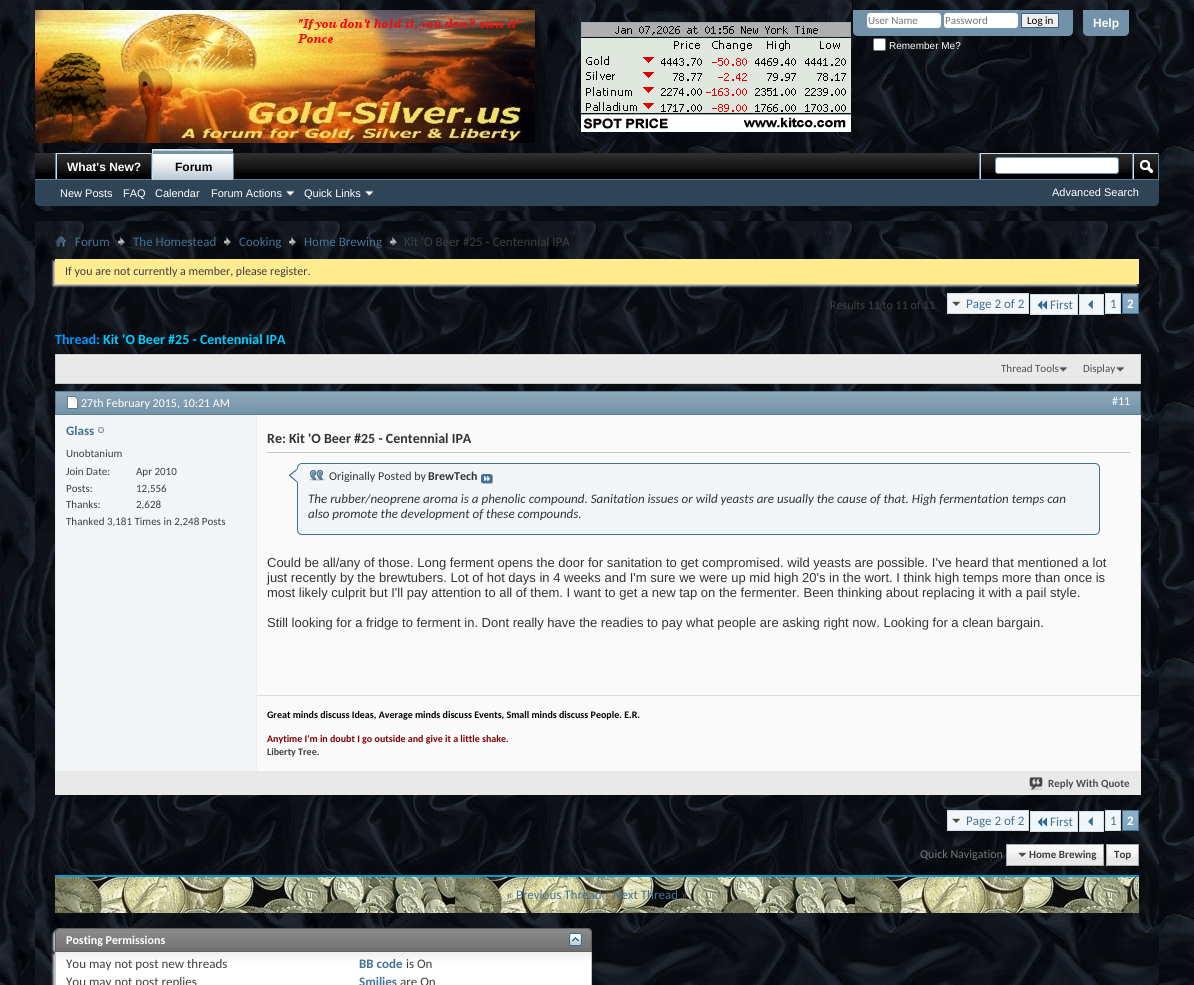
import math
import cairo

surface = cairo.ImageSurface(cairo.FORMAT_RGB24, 1194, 985)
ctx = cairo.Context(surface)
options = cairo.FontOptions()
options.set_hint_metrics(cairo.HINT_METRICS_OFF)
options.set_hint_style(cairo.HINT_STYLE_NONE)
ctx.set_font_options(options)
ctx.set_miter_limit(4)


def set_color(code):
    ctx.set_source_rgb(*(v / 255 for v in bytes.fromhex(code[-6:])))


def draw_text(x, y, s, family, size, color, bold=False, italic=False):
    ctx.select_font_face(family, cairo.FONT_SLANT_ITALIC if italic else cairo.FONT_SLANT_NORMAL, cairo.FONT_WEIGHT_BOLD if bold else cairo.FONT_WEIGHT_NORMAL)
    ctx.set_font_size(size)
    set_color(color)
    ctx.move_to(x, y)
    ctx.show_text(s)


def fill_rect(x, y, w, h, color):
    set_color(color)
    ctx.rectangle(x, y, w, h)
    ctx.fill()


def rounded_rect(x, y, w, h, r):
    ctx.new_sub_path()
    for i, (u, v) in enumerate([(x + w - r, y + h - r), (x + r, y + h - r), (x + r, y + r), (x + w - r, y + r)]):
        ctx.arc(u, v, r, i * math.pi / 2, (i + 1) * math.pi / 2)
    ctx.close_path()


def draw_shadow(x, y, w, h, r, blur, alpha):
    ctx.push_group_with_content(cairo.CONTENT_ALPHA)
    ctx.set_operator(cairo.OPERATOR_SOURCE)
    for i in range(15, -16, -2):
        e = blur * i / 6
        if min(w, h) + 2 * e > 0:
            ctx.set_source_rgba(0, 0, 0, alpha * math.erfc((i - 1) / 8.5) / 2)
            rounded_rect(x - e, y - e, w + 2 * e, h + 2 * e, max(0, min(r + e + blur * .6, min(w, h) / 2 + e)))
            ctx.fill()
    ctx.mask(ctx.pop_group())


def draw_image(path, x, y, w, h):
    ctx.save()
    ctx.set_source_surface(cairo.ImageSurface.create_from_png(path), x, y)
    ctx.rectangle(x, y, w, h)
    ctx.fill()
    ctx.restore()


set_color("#ffffff")
ctx.paint()
draw_image("assets/img1.png", 0, 0, 1194, 985)
draw_image("assets/img2.png", 35, 0, 1124, 211)
draw_image("assets/img3.png", 35, 10, 500, 133)
draw_image("assets/img4.png", 581, 22, 270, 110)
set_color("#7192a8")
ctx.new_path()
ctx.move_to(853, 10)
ctx.line_to(1073, 10)
ctx.line_to(1073, 31)
ctx.curve_to(1073, 34, 1071, 36, 1068, 36)
ctx.line_to(858, 36)
ctx.curve_to(855, 36, 853, 34, 853, 31)
ctx.close_path()
ctx.fill()
set_color("#ffffff")
rounded_rect(867, 13, 74, 15, 3)
ctx.fill()
draw_text(868, 24, "User Name", "Carlito", 11, "#777777")
set_color("#ffffff")
rounded_rect(944, 13, 74, 15, 3)
ctx.fill()
draw_text(945, 24, "Password", "Carlito", 11, "#777777")
set_color("#efefef")
ctx.rectangle(1021.5, 13.5, 37, 14)
ctx.fill_preserve()
set_color("#415d8d")
ctx.set_line_width(1)
ctx.stroke()
draw_text(1027, 24, "Log in", "Carlito", 11, "#000000")
set_color("#ffffff")
rounded_rect(873.5, 38.5, 12, 12, 1.5)
ctx.fill_preserve()
set_color("#767676")
ctx.stroke()
draw_text(889, 49, "Remember Me?", "Liberation Sans", 10, "#ffffff")
set_color("#7192a8")
ctx.new_path()
ctx.move_to(1083, 10)
ctx.line_to(1129, 10)
ctx.line_to(1129, 31)
ctx.curve_to(1129, 34, 1127, 36, 1124, 36)
ctx.line_to(1088, 36)
ctx.curve_to(1085, 36, 1083, 34, 1083, 31)
ctx.close_path()
ctx.fill()
draw_text(1093, 27, "Help", "Liberation Sans", 12, "#ffffff", bold=True)
set_color("#2f4456")
ctx.new_path()
ctx.move_to(35, 153)
ctx.line_to(1159, 153)
ctx.line_to(1159, 201)
ctx.curve_to(1159, 204, 1157, 206, 1154, 206)
ctx.line_to(40, 206)
ctx.curve_to(37, 206, 35, 204, 35, 201)
ctx.close_path()
ctx.fill()
fill_rect(35, 153, 1123, 26, "#000000")
draw_image("assets/img5.png", 35, 153, 1123, 20)
fill_rect(233, 153, 1, 26, "#5a7f97")
fill_rect(151, 153, 1, 27, "#5a7f97")
fill_rect(55, 153, 1, 27, "#5a7f97")
fill_rect(56, 153, 95, 1, "#cedfeb")
fill_rect(56, 153, 1, 27, "#cedfeb")
fill_rect(35, 179, 1124, 1, "#5a7f97")
fill_rect(153, 150, 80, 30, "#7192a8")
draw_image("assets/img6.png", 153, 150, 80, 30)
fill_rect(152, 149, 81, 1, "#cedfeb")
fill_rect(152, 149, 1, 31, "#cedfeb")
draw_text(175, 171, "Forum", "Liberation Sans", 12, "#000000", bold=True)
draw_text(60, 197, "New Posts", "Liberation Sans", 11, "#ffffff")
draw_text(123, 197, "FAQ", "Liberation Sans", 11, "#ffffff")
draw_text(155, 197, "Calendar", "Liberation Sans", 11, "#ffffff")
draw_text(211, 197, "Forum Actions", "Liberation Sans", 11, "#ffffff")
draw_image("assets/img7.png", 286, 190, 9, 6)
draw_text(304, 197, "Quick Links", "Liberation Sans", 11, "#ffffff")
draw_image("assets/img7.png", 365, 190, 9, 6)
fill_rect(57, 154, 94, 19, "#000000")
draw_image("assets/img8.png", 57, 154, 94, 20)
draw_text(67, 171, "What's New?", "Liberation Sans", 12, "#ffffff", bold=True)
fill_rect(979, 153, 1, 26, "#5a7f97")
fill_rect(980, 153, 152, 1, "#cedfeb")
fill_rect(980, 153, 1, 26, "#cedfeb")
set_color("#ffffff")
rounded_rect(995.5, 157.5, 123, 16, 2.5)
ctx.fill_preserve()
set_color("#6b91ab")
ctx.stroke()
fill_rect(1158, 153, 1, 26, "#5a7f97")
fill_rect(1132, 153, 1, 26, "#5a7f97")
fill_rect(1133, 153, 25, 1, "#cedfeb")
fill_rect(1133, 153, 1, 26, "#cedfeb")
draw_image("assets/img9.png", 1140, 160, 13, 14)
draw_text(1052, 196, "Advanced Search", "Liberation Sans", 11, "#ffffff")
draw_image("assets/img10.png", 35, 221, 1124, 764)
draw_image("assets/img11.png", 55, 235, 12, 12)
draw_image("assets/img12.png", 118, 237, 7, 10)
draw_text(75, 246, "Forum", "Carlito", 13, "#417394")
draw_image("assets/img13.png", 224, 237, 7, 10)
draw_text(133, 246, "The Homestead", "Carlito", 13, "#417394")
draw_image("assets/img14.png", 289, 237, 7, 10)
draw_text(239, 246, "Cooking", "Carlito", 13, "#417394")
draw_image("assets/img15.png", 390, 237, 7, 10)
draw_text(304, 246, "Home Brewing", "Carlito", 13, "#417394")
draw_text(404, 246, "Kit 'O Beer #25 - Centennial IPA", "Carlito", 13, "#3e3e3e")
set_color("#c8c8c8")
draw_shadow(53, 261, 1084, 25, 0, 1, 1)
fill_rect(55, 259, 1084, 25, "#ffeb90")
draw_text(65, 275, "If you are not currently a member, please register.", "Carlito", 12, "#3e3e3e")
draw_text(830, 309, "Results 11 to 11 of 11", "Carlito", 12, "#3e3e3e")
fill_rect(948, 294, 80, 19, "#f2f6f8")
draw_image("assets/img16.png", 952, 301, 9, 6)
ctx.rectangle(947.5, 293.5, 81, 20)
set_color("#cedfeb")
ctx.stroke()
draw_text(966, 308, "Page 2 of 2", "Carlito", 13, "#417394")
fill_rect(1031, 295, 46, 19, "#f2f6f8")
draw_image("assets/img17.png", 1037, 300, 10, 10)
draw_text(1050, 309, "First", "Carlito", 13, "#417394")
fill_rect(1030, 294, 48, 1, "#cedfeb")
fill_rect(1030, 314, 20, 1, "#cedfeb")
fill_rect(1030, 294, 1, 21, "#cedfeb")
fill_rect(1077, 294, 1, 21, "#cedfeb")
fill_rect(1050, 314, 28, 1, "#cedfeb")
set_color("#f2f6f8")
ctx.rectangle(1079.5, 294.5, 24, 20)
ctx.fill_preserve()
set_color("#cedfeb")
ctx.stroke()
draw_image("assets/img18.png", 1088, 300, 5, 9)
set_color("#f2f6f8")
ctx.rectangle(1105.5, 293.5, 15, 20)
ctx.fill_preserve()
set_color("#cedfeb")
ctx.stroke()
draw_text(1110, 308, "1", "Carlito", 13, "#417394")
fill_rect(1123, 294, 15, 19, "#759fbb")
draw_image("assets/img19.png", 1123, 294, 15, 19)
ctx.rectangle(1122.5, 293.5, 16, 20)
set_color("#417394")
ctx.stroke()
draw_text(1127, 308, "2", "Carlito", 13, "#ffffff", bold=True)
draw_text(55, 344, "Thread:", "Carlito", 14, "#0099ff", bold=True)
draw_text(103, 344, "Kit 'O Beer #25 - Centennial IPA", "Carlito", 14, "#00ccff", bold=True)
fill_rect(56, 356, 1084, 27, "#e9e9e9")
fill_rect(55, 355, 1086, 1, "#ededed")
ctx.rectangle(55.5, 354.5, 1085, 29)
set_color("#cecece")
ctx.stroke()
draw_image("assets/img20.png", 1059, 366, 9, 7)
draw_text(1001, 372, "Thread Tools", "Carlito", 11, "#4e4e4e")
draw_image("assets/img20.png", 1116, 366, 9, 7)
draw_text(1083, 372, "Display", "Carlito", 11, "#4e4e4e")
ctx.rectangle(55.5, 391.5, 1085, 403)
set_color("#e9e9e9")
ctx.stroke()
fill_rect(56, 392, 1084, 22, "#7192a8")
draw_image("assets/img21.png", 56, 392, 1084, 20)
ctx.rectangle(55.5, 391.5, 1085, 23)
set_color("#5a7f97")
ctx.stroke()
draw_image("assets/img22.png", 67, 396, 11, 13)
draw_text(81, 407, "27th February 2015, 10:21 AM", "Carlito", 12, "#ffffff")
draw_text(1112, 405, "#11", "Carlito", 12, "#ffffff")
fill_rect(56, 415, 200, 356, "#f2f6f8")
draw_text(66, 435, "Glass", "Carlito", 13, "#417394", bold=True)
draw_image("assets/img23.png", 98, 427, 6, 6)
draw_text(66, 457, "Unobtanium", "Carlito", 11, "#3e3e3e")
draw_text(66, 475, "Join Date:", "Carlito", 11, "#3e3e3e")
draw_text(136, 475, "Apr 2010", "Carlito", 11, "#3e3e3e")
draw_text(66, 492, "Posts:", "Carlito", 11, "#3e3e3e")
draw_text(136, 492, "12,556", "Carlito", 11, "#3e3e3e")
draw_text(66, 508, "Thanks:", "Carlito", 11, "#3e3e3e")
draw_text(136, 508, "2,628", "Carlito", 11, "#3e3e3e")
draw_text(66, 525, "Thanked 3,181 Times in 2,248 Posts", "Carlito", 11, "#3e3e3e")
fill_rect(257, 415, 883, 356, "#fafafa")
fill_rect(256, 415, 1, 356, "#efefef")
fill_rect(267, 452, 863, 1, "#c8c8c8")
draw_text(267, 443, "Re: Kit 'O Beer #25 - Centennial IPA", "Carlito", 14, "#333333", bold=True)
set_color("#f2f6f8")
rounded_rect(297.5, 463.5, 802, 71, 4.5)
ctx.fill_preserve()
set_color("#417394")
ctx.stroke()
draw_image("assets/img24.png", 289, 469, 9, 13)
draw_image("assets/img25.png", 308, 470, 18, 11)
draw_text(329, 480, "Originally Posted by", "Carlito", 12, "#333333")
draw_text(428, 480, "BrewTech", "Carlito", 12, "#333333", bold=True)
draw_image("assets/img26.png", 481, 474, 12, 10)
draw_text(308, 503, "The rubber/neoprene aroma is a phenolic compound. Sanitation issues or wild yeasts are usually the cause of that. High fermentation temps can", "Carlito", 13, "#333333", italic=True)
draw_text(308, 518, "also promote the development of these compounds.", "Carlito", 13, "#333333", italic=True)
draw_text(267, 567, "Could be all/any of those. Long ferment opens the door for sanitation to get compromised. wild yeasts are possible. I've heard that mentioned a lot", "Liberation Sans", 13, "#333333")
draw_text(267, 582, "just recently by the brewtubers. Lot of hot days in 4 weeks and I'm sure we were up mid high 20's in the wort. I think high temps more than once is", "Liberation Sans", 13, "#333333")
draw_text(267, 597, "most likely culprit but I'll pay attention to all of them. I want to get a new tap on the fermenter. Been thinking about replacing it with a pail style.", "Liberation Sans", 13, "#333333")
draw_text(267, 627, "Still looking for a fridge to ferment in. Dont really have the readies to pay what people are asking right now. Looking for a clean bargain.", "Liberation Sans", 13, "#333333")
fill_rect(257, 695, 883, 1, "#dddddd")
draw_text(267, 718, "Great minds discuss Ideas, Average minds discuss Events, Small minds discuss People. E.R.", "Carlito", 10, "#000000", bold=True)
draw_text(267, 742, "Anytime I'm in doubt I go outside and give it a little shake.", "Carlito", 10, "#800000", bold=True)
draw_text(267, 755, "Liberty Tree.", "Carlito", 10, "#3e3e3e", bold=True)
fill_rect(56, 771, 1084, 23, "#e9e9e9")
draw_image("assets/img27.png", 1029, 777, 14, 13)
draw_text(1048, 787, "Reply With Quote", "Carlito", 11, "#4e4e4e", bold=True)
fill_rect(948, 811, 80, 19, "#f2f6f8")
draw_image("assets/img16.png", 952, 818, 9, 6)
ctx.rectangle(947.5, 810.5, 81, 20)
set_color("#cedfeb")
ctx.stroke()
draw_text(966, 825, "Page 2 of 2", "Carlito", 13, "#417394")
fill_rect(1031, 812, 46, 19, "#f2f6f8")
draw_image("assets/img17.png", 1037, 817, 10, 10)
draw_text(1050, 826, "First", "Carlito", 13, "#417394")
fill_rect(1030, 811, 48, 1, "#cedfeb")
fill_rect(1030, 831, 20, 1, "#cedfeb")
fill_rect(1030, 811, 1, 21, "#cedfeb")
fill_rect(1077, 811, 1, 21, "#cedfeb")
fill_rect(1050, 831, 28, 1, "#cedfeb")
set_color("#f2f6f8")
ctx.rectangle(1079.5, 811.5, 24, 20)
ctx.fill_preserve()
set_color("#cedfeb")
ctx.stroke()
draw_image("assets/img18.png", 1088, 817, 5, 9)
set_color("#f2f6f8")
ctx.rectangle(1105.5, 810.5, 15, 20)
ctx.fill_preserve()
set_color("#cedfeb")
ctx.stroke()
draw_text(1110, 825, "1", "Carlito", 13, "#417394")
fill_rect(1123, 811, 15, 19, "#759fbb")
draw_image("assets/img19.png", 1123, 811, 15, 19)
ctx.rectangle(1122.5, 810.5, 16, 20)
set_color("#417394")
ctx.stroke()
draw_text(1127, 825, "2", "Carlito", 13, "#ffffff", bold=True)
draw_text(920, 858, "Quick Navigation", "Carlito", 12, "#777777")
fill_rect(1007, 845, 96, 20, "#e9e9e9")
draw_image("assets/img28.png", 1007, 845, 96, 12)
fill_rect(1107, 845, 31, 20, "#e9e9e9")
draw_image("assets/img29.png", 1107, 845, 31, 12)
ctx.rectangle(1006.5, 844.5, 97, 21)
set_color("#a8a8a8")
ctx.stroke()
draw_image("assets/img30.png", 1018, 852, 9, 6)
draw_text(1029, 858, "Home Brewing", "Carlito", 11, "#3e3e3e", bold=True)
ctx.rectangle(1106.5, 844.5, 32, 21)
set_color("#a8a8a8")
ctx.stroke()
draw_text(1114, 858, "Top", "Carlito", 11, "#3e3e3e", bold=True)
draw_image("assets/img31.png", 55, 877, 1084, 36)
fill_rect(55, 875, 1084, 2, "#0099cc")
draw_text(506, 899, "«", "Carlito", 13, "#5d5d5d")
draw_text(516, 899, "Previous Thread", "Carlito", 13, "#417394")
draw_text(604, 899, "|", "Carlito", 13, "#5d5d5d")
draw_text(613, 899, "Next Thread", "Carlito", 13, "#417394")
draw_text(681, 899, "»", "Carlito", 13, "#5d5d5d")
set_color("#c8c8c8")
draw_shadow(53, 930, 537, 24, 5, 1, 1)
set_color("#707070")
ctx.new_path()
ctx.move_to(60, 928)
ctx.line_to(587, 928)
ctx.curve_to(590, 928, 592, 930, 592, 933)
ctx.line_to(592, 952)
ctx.line_to(55, 952)
ctx.line_to(55, 933)
ctx.curve_to(55, 930, 57, 928, 60, 928)
ctx.close_path()
ctx.fill()
draw_image("assets/img32.png", 55, 929, 537, 20)
ctx.new_path()
ctx.move_to(60, 928.5)
ctx.line_to(587, 928.5)
ctx.curve_to(589.5, 928.5, 591.5, 930.5, 591.5, 933)
ctx.line_to(591.5, 951.5)
ctx.line_to(55.5, 951.5)
ctx.line_to(55.5, 933)
ctx.curve_to(55.5, 930.5, 57.5, 928.5, 60, 928.5)
ctx.close_path()
set_color("#606060")
ctx.stroke()
draw_text(66, 944, "Posting Permissions", "Carlito", 12, "#ffffff", bold=True)
draw_image("assets/img33.png", 569, 933, 13, 13)
set_color("#c8c8c8")
draw_shadow(53, 954, 537, 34, 0, 1, 1)
fill_rect(56, 952, 535, 33, "#ffffff")
draw_image("assets/img34.png", 56, 952, 535, 9)
fill_rect(591, 952, 1, 33, "#c4c4c4")
fill_rect(55, 952, 1, 33, "#c4c4c4")
draw_text(66, 968, "You may not post new threads", "Carlito", 13, "#3e3e3e")
draw_text(66, 986, "You may not post replies", "Carlito", 13, "#3e3e3e")
draw_text(359, 968, "BB code", "Carlito", 13, "#417394", bold=True)
draw_text(406, 968, "is On", "Carlito", 13, "#3e3e3e")
draw_text(359, 986, "Smilies", "Carlito", 13, "#417394", bold=True)
draw_text(400, 986, "are On", "Carlito", 13, "#3e3e3e")
surface.write_to_png("output.png")
